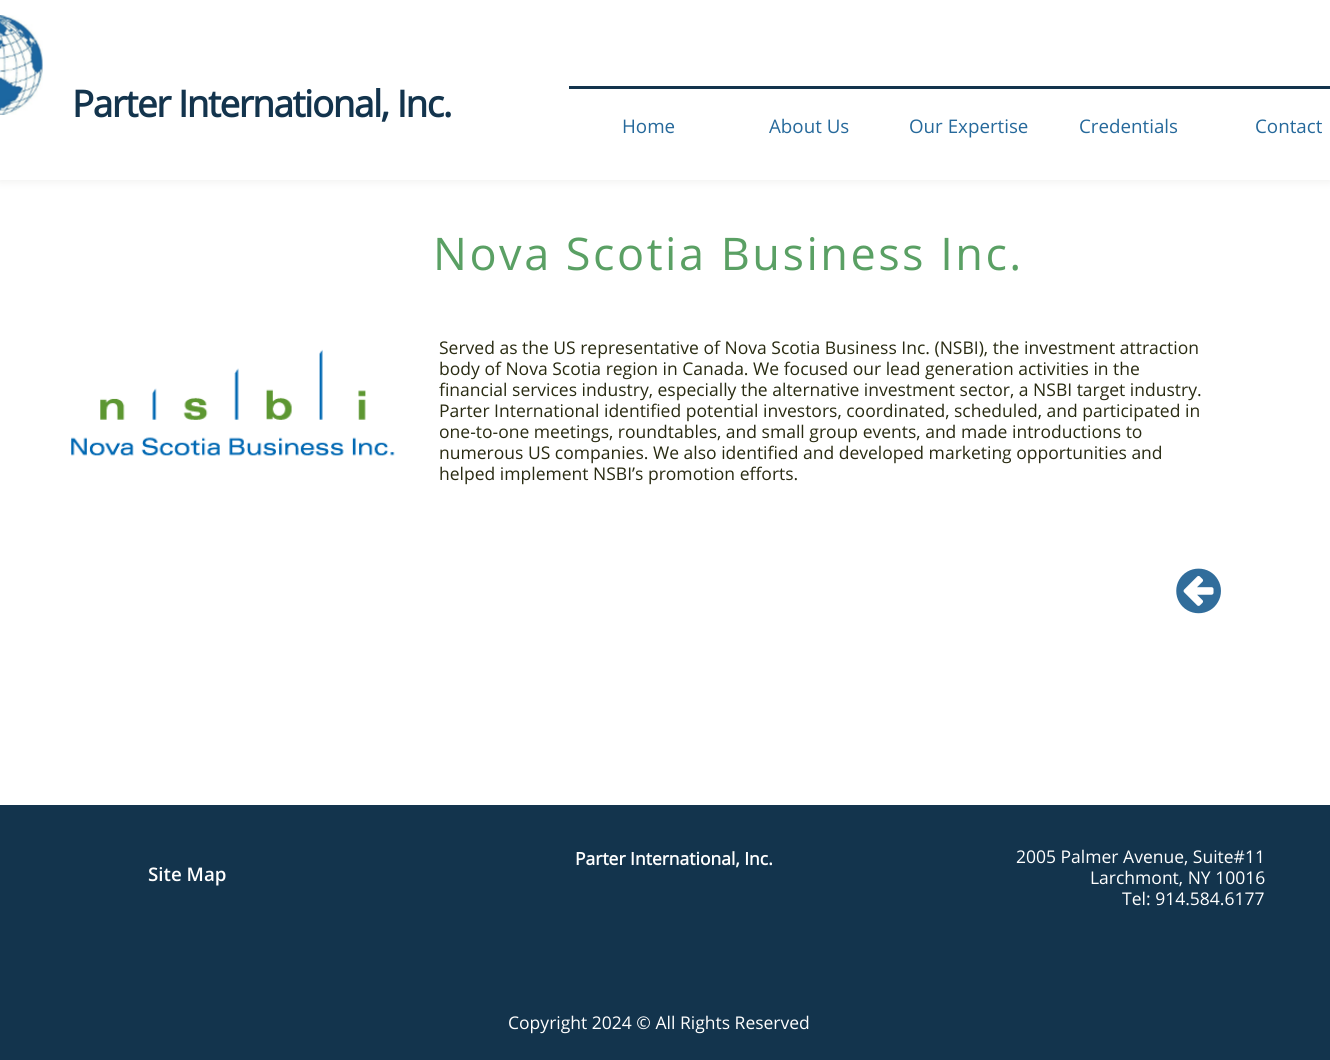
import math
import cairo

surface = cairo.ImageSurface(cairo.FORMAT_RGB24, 1330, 1060)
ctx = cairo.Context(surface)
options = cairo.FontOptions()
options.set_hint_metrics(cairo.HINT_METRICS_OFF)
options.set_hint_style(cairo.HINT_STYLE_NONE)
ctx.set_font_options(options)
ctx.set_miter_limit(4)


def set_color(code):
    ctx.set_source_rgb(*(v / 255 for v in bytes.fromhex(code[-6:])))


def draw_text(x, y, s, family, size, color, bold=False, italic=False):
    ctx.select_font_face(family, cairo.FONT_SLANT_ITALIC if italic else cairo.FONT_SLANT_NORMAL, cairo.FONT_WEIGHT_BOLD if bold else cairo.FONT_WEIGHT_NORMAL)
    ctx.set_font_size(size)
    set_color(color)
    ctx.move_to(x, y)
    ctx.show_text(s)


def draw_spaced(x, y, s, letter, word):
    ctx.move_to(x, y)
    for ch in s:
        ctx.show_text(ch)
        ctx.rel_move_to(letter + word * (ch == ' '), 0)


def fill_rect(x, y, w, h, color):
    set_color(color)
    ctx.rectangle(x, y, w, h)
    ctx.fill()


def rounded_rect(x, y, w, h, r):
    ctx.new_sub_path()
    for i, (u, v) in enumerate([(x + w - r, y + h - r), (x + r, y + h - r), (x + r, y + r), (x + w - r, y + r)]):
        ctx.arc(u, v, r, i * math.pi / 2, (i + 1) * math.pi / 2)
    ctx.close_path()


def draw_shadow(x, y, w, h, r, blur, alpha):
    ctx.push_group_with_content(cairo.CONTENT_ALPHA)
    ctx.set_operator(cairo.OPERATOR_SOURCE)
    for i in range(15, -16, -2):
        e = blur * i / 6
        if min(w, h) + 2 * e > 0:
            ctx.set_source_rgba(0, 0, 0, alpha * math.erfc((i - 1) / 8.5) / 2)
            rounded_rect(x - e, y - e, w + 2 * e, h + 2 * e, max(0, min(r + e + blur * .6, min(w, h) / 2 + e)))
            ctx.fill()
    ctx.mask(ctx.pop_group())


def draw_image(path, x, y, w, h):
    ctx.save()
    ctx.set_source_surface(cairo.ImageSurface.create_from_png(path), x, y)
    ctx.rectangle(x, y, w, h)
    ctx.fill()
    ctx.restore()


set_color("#ffffff")
ctx.paint()
ctx.save()
ctx.rectangle(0, 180, 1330, 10)
ctx.clip()
set_color("#ecebe9")
draw_shadow(0, 0, 1330, 180, 0, 5, 1)
ctx.restore()
draw_image("assets/img1.png", 0, 15, 43, 100)
ctx.select_font_face("Open Sans", cairo.FONT_SLANT_NORMAL, cairo.FONT_WEIGHT_BOLD)
ctx.set_font_size(36.75)
set_color("#13344d")
draw_spaced(72, 117, "Parter International, Inc.", -1.4, 0)
fill_rect(569, 86, 761, 3, "#13344d")
draw_text(622, 133, "Home", "Open Sans", 18.75, "#26699b")
draw_text(769, 133, "About Us", "Open Sans", 18.75, "#26699b")
draw_text(909, 133, "Our Expertise", "Open Sans", 18.75, "#26699b")
draw_text(1079, 133, "Credentials", "Open Sans", 18.75, "#26699b")
draw_text(1255, 133, "Contact", "Open Sans", 18.75, "#26699b")
ctx.set_font_size(45)
set_color("#5aa064")
draw_spaced(433, 270, "Nova Scotia Business Inc.", 2.5, 0)
draw_image("assets/img2.png", 71, 349, 324, 107)
draw_text(439, 354, "Served as the US representative of Nova Scotia Business Inc. (NSBI), the investment attraction", "Open Sans", 17.5, "#292b12")
draw_text(439, 375, "body of Nova Scotia region in Canada. We focused our lead generation activities in the", "Open Sans", 17.5, "#292b12")
draw_text(439, 396, "financial services industry, especially the alternative investment sector, a NSBI target industry.", "Open Sans", 17.5, "#292b12")
draw_text(439, 417, "Parter International identified potential investors, coordinated, scheduled, and participated in", "Open Sans", 17.5, "#292b12")
draw_text(439, 438, "one-to-one meetings, roundtables, and small group events, and made introductions to", "Open Sans", 17.5, "#292b12")
draw_text(439, 459, "numerous US companies. We also identified and developed marketing opportunities and", "Open Sans", 17.5, "#292b12")
draw_text(439, 480, "helped implement NSBI’s promotion efforts.", "Open Sans", 17.5, "#292b12")
draw_image("assets/img3.png", 1176, 568, 45, 46)
fill_rect(0, 805, 1330, 255, "#13344d")
draw_text(575, 865, "Parter International, Inc.", "Open Sans", 17.5, "#ffffff", bold=True)
draw_text(1016, 863, "2005 Palmer Avenue, Suite#11", "Open Sans", 17.5, "#ffffff")
draw_text(1090, 884, "Larchmont, NY 10016", "Open Sans", 17.5, "#ffffff")
draw_text(1122, 905, "Tel: 914.584.6177", "Open Sans", 17.5, "#ffffff")
draw_text(148, 881, "Site Map", "Open Sans SemiBold", 18.75, "#ffffff")
draw_text(508, 1029, "Copyright 2024 © All Rights Reserved", "Open Sans", 17.5, "#ffffff")
surface.write_to_png("output.png")
